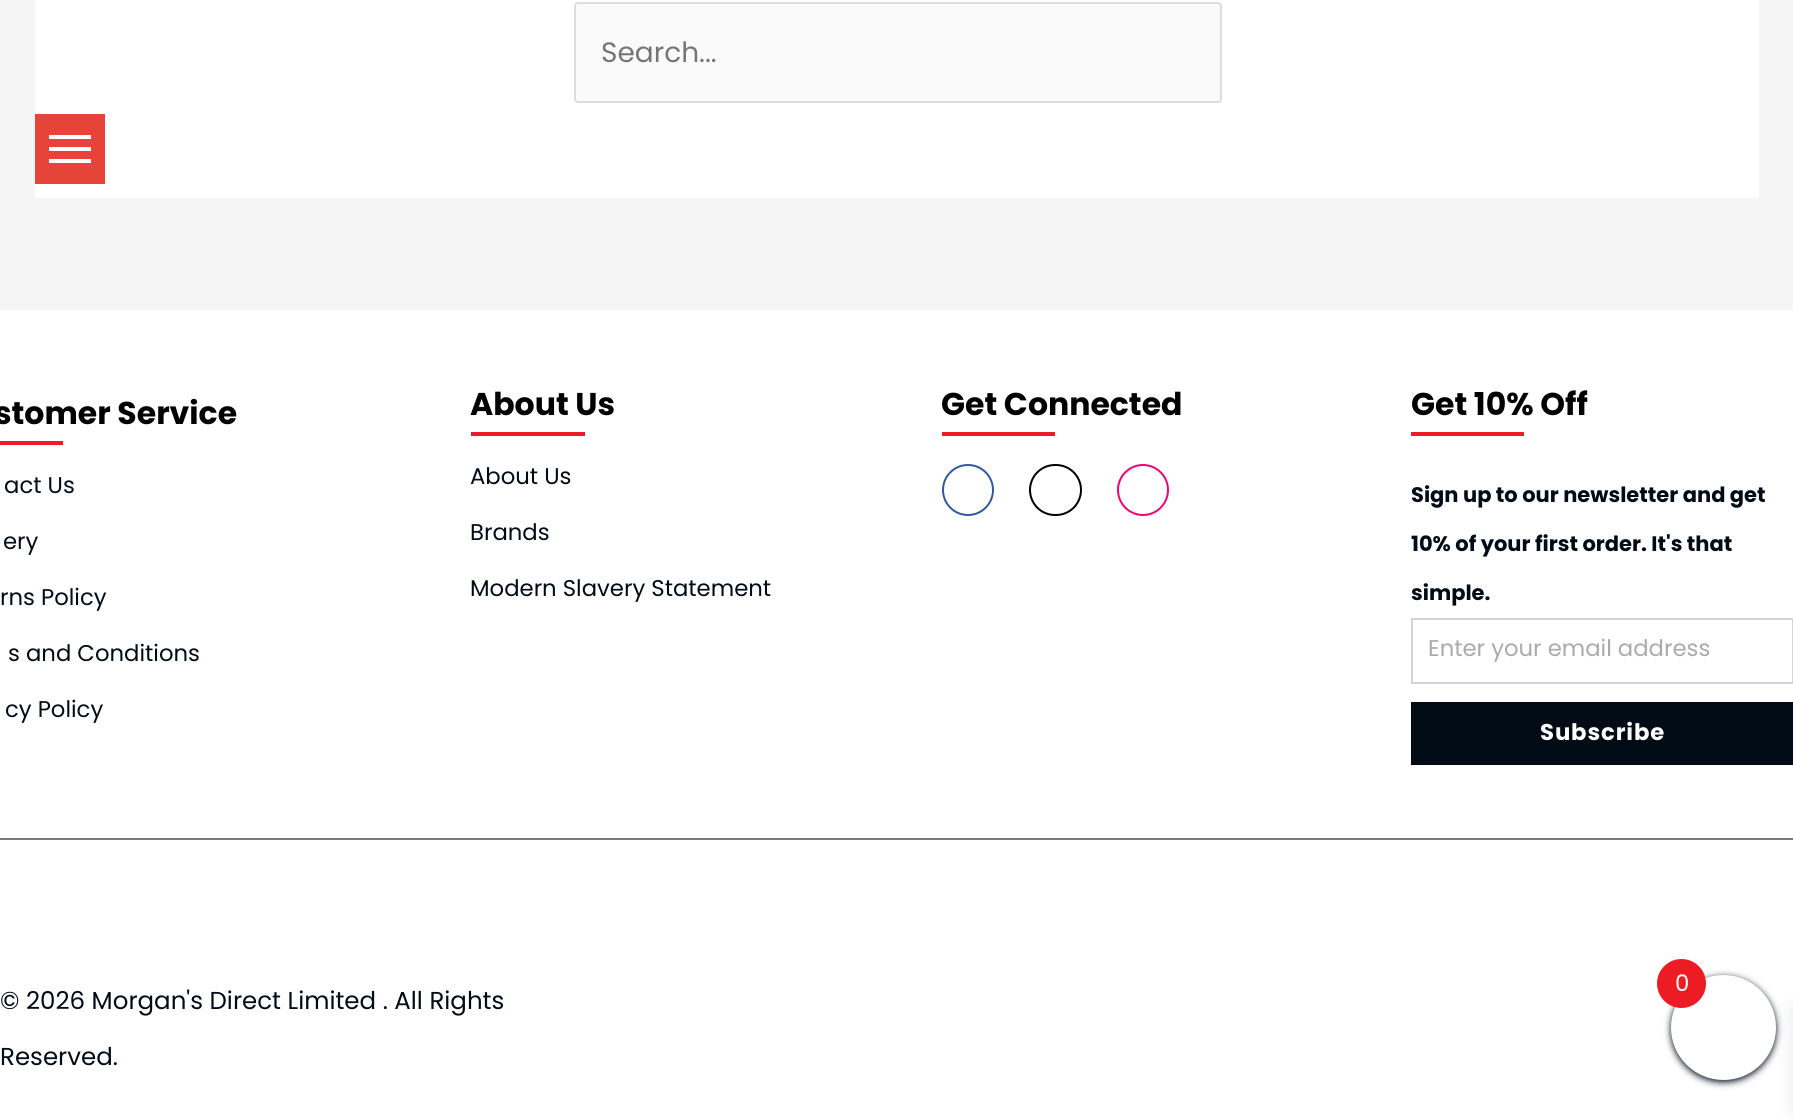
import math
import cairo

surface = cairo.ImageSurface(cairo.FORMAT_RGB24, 1793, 1117)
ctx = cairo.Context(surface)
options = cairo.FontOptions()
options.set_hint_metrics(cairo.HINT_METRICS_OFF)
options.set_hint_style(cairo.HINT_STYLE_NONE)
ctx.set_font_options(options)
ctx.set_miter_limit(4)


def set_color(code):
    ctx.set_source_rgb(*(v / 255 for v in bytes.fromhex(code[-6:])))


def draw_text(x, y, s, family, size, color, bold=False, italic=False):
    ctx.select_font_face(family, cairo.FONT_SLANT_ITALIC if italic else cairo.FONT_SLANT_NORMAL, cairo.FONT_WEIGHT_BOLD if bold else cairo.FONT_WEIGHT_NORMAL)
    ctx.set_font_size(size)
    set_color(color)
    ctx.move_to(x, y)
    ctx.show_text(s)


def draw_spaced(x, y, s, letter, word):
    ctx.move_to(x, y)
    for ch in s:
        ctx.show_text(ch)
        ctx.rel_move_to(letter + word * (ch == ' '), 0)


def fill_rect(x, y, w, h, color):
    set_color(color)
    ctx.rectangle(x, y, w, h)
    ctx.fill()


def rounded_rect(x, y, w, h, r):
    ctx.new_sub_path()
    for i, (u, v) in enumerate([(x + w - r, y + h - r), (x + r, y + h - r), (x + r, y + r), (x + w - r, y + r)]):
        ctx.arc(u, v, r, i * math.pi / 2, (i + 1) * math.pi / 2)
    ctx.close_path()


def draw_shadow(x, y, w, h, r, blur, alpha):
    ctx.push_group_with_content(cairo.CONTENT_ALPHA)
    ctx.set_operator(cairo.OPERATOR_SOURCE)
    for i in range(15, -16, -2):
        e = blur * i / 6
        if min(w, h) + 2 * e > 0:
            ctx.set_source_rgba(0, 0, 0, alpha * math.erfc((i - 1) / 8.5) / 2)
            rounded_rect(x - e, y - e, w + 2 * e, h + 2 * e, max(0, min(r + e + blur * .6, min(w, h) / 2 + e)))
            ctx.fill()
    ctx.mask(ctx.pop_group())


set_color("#f5f5f5")
ctx.paint()
fill_rect(35, 0, 1724, 198, "#ffffff")
set_color("#fafafa")
rounded_rect(575, 3, 646, 99, 3)
ctx.fill_preserve()
set_color("#dddddd")
ctx.stroke()
draw_text(601, 62, "Search...", "Poppins", 28, "#757575")
fill_rect(0, 310, 1793, 807, "#ffffff")
draw_text(-6, 424, "stomer Service", "Poppins", 31.5, "#000000", bold=True)
fill_rect(0, 441, 63, 4, "#ed1c24")
draw_text(4, 493, "act Us", "Poppins", 22.75, "#000b15")
draw_text(3, 549, "ery", "Poppins", 22.75, "#000b15")
draw_text(0, 605, "rns Policy", "Poppins", 22.75, "#000b15")
draw_text(8, 661, "s and Conditions", "Poppins", 22.75, "#000b15")
draw_text(5, 717, "cy Policy", "Poppins", 22.75, "#000b15")
draw_text(470, 415, "About Us", "Poppins", 31.5, "#000000", bold=True)
fill_rect(471, 432, 114, 4, "#ed1c24")
draw_text(470, 484, "About Us", "Poppins", 22.75, "#000b15")
draw_text(470, 540, "Brands", "Poppins", 22.75, "#000b15")
draw_text(470, 596, "Modern Slavery Statement", "Poppins", 22.75, "#000b15")
draw_text(941, 415, "Get Connected", "Poppins", 31.5, "#000000", bold=True)
fill_rect(942, 432, 113, 4, "#ed1c24")
ctx.new_path()
ctx.arc(968, 490, 25, 0, 2 * math.pi)
set_color("#32599d")
ctx.stroke()
rounded_rect(1030, 465, 51, 50, 25)
set_color("#000000")
ctx.stroke()
ctx.arc(1143, 490, 25, 0, 2 * math.pi)
set_color("#ec0475")
ctx.stroke()
draw_text(1411, 415, "Get 10% Off", "Poppins", 31.5, "#000000", bold=True)
fill_rect(1411, 432, 113, 4, "#ed1c24")
draw_text(1411, 502, "Sign up to our newsletter and get", "Poppins", 21, "#000b15", bold=True)
draw_text(1411, 551, "10% of your first order. It's that", "Poppins", 21, "#000b15", bold=True)
draw_text(1411, 600, "simple.", "Poppins", 21, "#000b15", bold=True)
ctx.rectangle(1412, 619, 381, 64)
set_color("#d4d4d4")
ctx.stroke()
draw_text(1428, 656, "Enter your email address", "Poppins", 22.75, "#aaaaaa")
fill_rect(1411, 702, 382, 63, "#000b15")
ctx.select_font_face("Poppins", cairo.FONT_SLANT_NORMAL, cairo.FONT_WEIGHT_BOLD)
set_color("#ffffff")
draw_spaced(1540, 740, "Subscribe", 0.9, 0)
fill_rect(0, 838, 1793, 2, "#7a7a7a")
draw_text(0, 1009, "© 2026 Morgan's Direct Limited . All Rights", "Poppins", 24.5, "#000b15")
draw_text(0, 1065, "Reserved.", "Poppins", 24.5, "#000b15")
fill_rect(35, 114, 70, 70, "#e64438")
fill_rect(49, 147, 42, 4, "#ffffff")
fill_rect(49, 135, 42, 4, "#ffffff")
fill_rect(49, 159, 42, 4, "#ffffff")
set_color("#000b15")
draw_shadow(1671, 977, 105, 105, 52.5, 3.5, 1)
set_color("#000000")
draw_shadow(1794, 1008, 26, 102, 0, 9, 0.1)
set_color("#ffffff")
ctx.arc(1723.5, 1027.5, 52.5, 0, 2 * math.pi)
ctx.fill()
set_color("#ed1c24")
ctx.arc(1681.5, 983.5, 24.5, 0, 2 * math.pi)
ctx.fill()
draw_text(1675, 991, "0", "Poppins", 22.75, "#ffffff")
surface.write_to_png("output.png")
